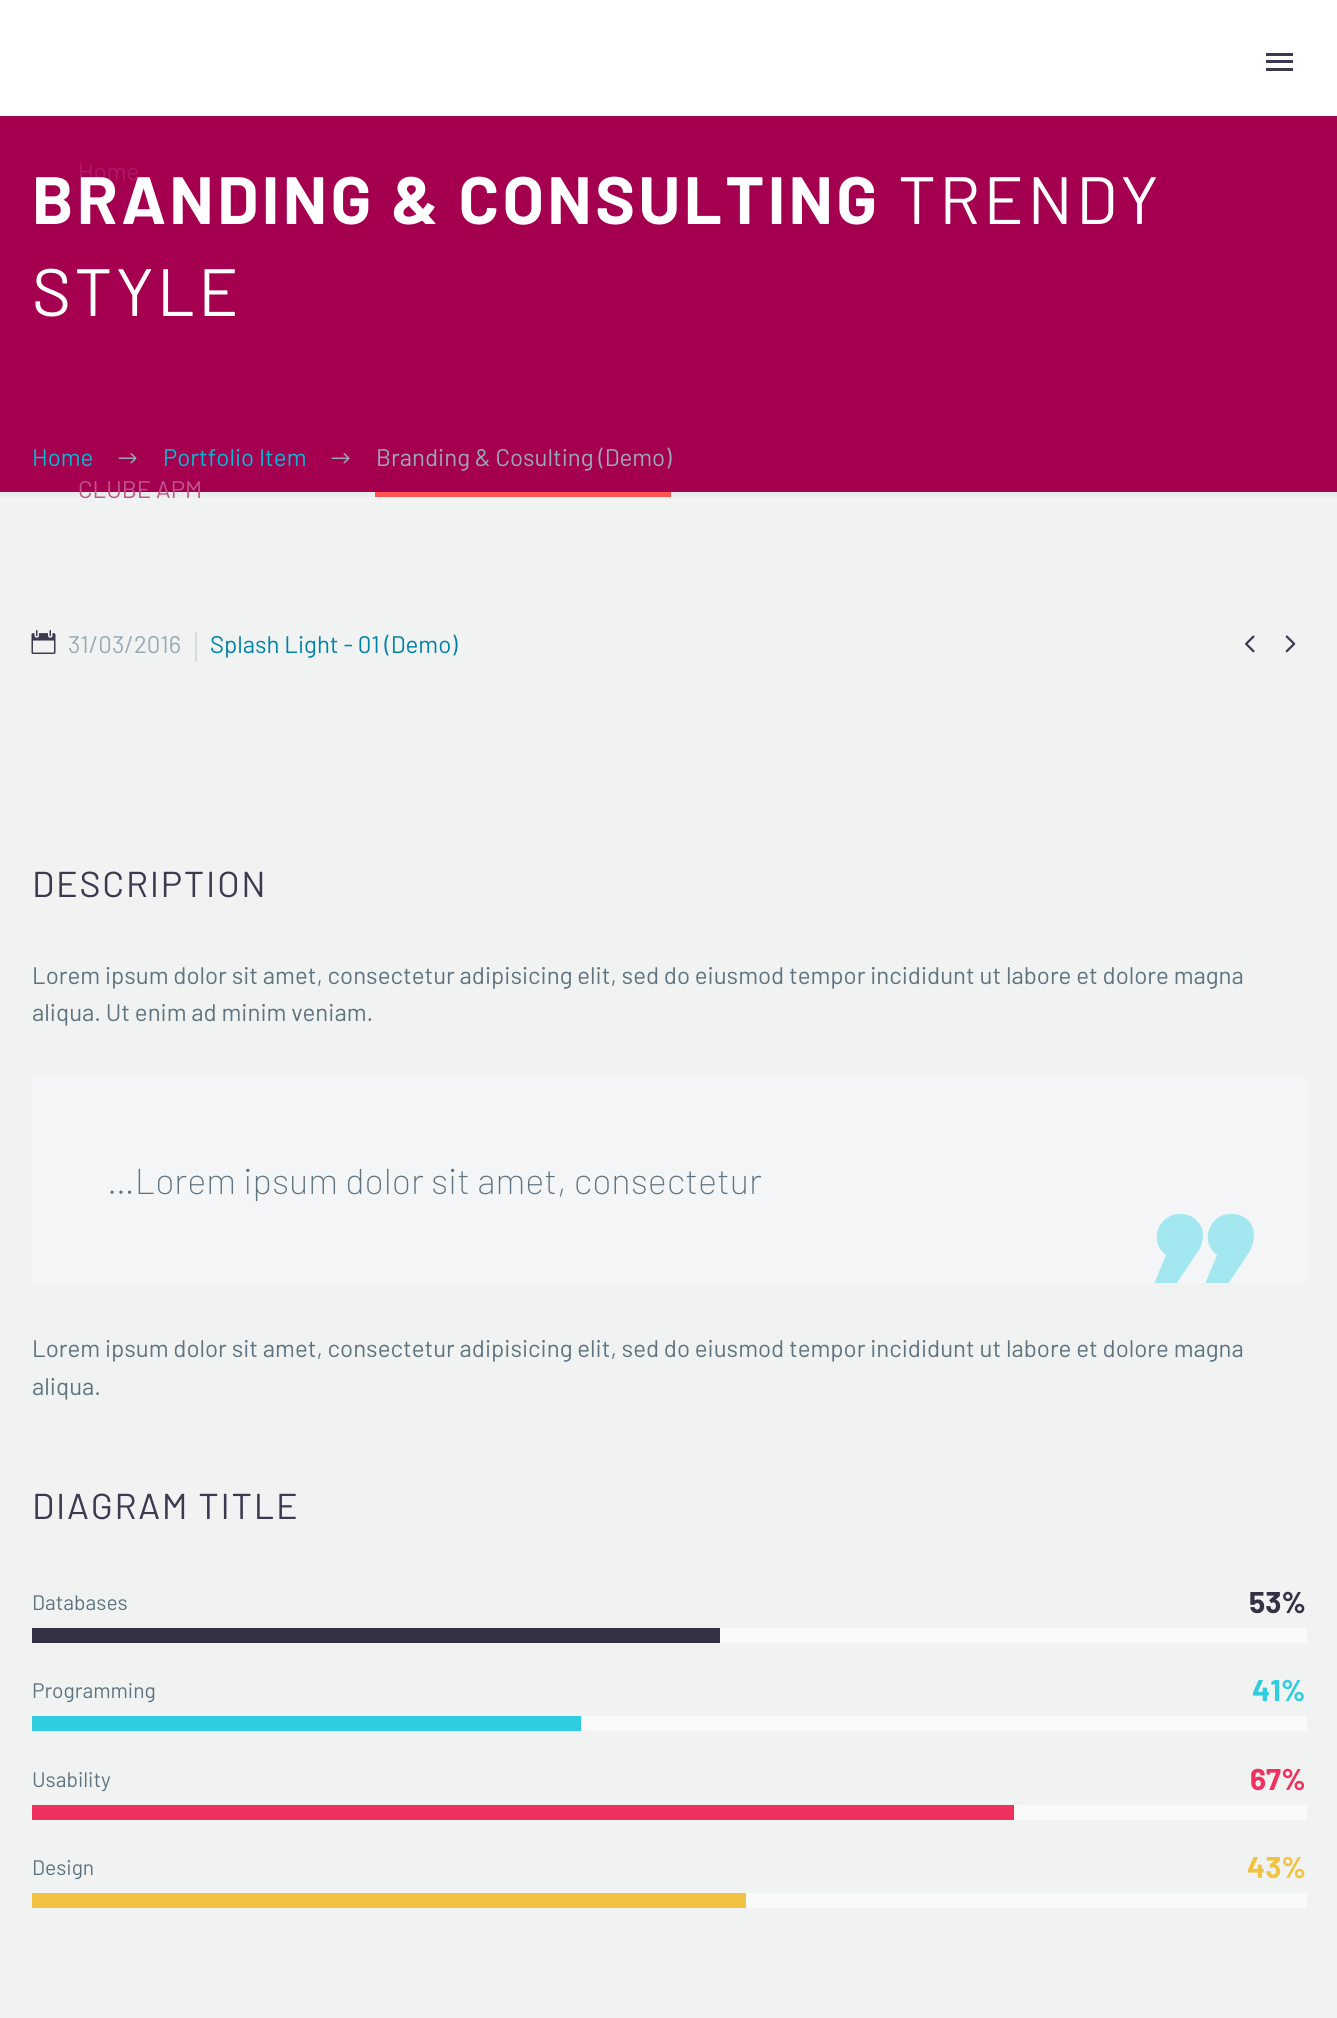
import math
import cairo

surface = cairo.ImageSurface(cairo.FORMAT_RGB24, 1337, 2018)
ctx = cairo.Context(surface)
options = cairo.FontOptions()
options.set_hint_metrics(cairo.HINT_METRICS_OFF)
options.set_hint_style(cairo.HINT_STYLE_NONE)
ctx.set_font_options(options)
ctx.set_miter_limit(4)


def set_color(code):
    ctx.set_source_rgb(*(v / 255 for v in bytes.fromhex(code[-6:])))


def draw_text(x, y, s, family, size, color, bold=False, italic=False):
    ctx.select_font_face(family, cairo.FONT_SLANT_ITALIC if italic else cairo.FONT_SLANT_NORMAL, cairo.FONT_WEIGHT_BOLD if bold else cairo.FONT_WEIGHT_NORMAL)
    ctx.set_font_size(size)
    set_color(color)
    ctx.move_to(x, y)
    ctx.show_text(s)


def draw_spaced(x, y, s, letter, word):
    ctx.move_to(x, y)
    for ch in s:
        ctx.show_text(ch)
        ctx.rel_move_to(letter + word * (ch == ' '), 0)


def fill_rect(x, y, w, h, color):
    set_color(color)
    ctx.rectangle(x, y, w, h)
    ctx.fill()


def rounded_rect(x, y, w, h, r):
    ctx.new_sub_path()
    for i, (u, v) in enumerate([(x + w - r, y + h - r), (x + r, y + h - r), (x + r, y + r), (x + w - r, y + r)]):
        ctx.arc(u, v, r, i * math.pi / 2, (i + 1) * math.pi / 2)
    ctx.close_path()


def draw_shadow(x, y, w, h, r, blur, alpha):
    ctx.push_group_with_content(cairo.CONTENT_ALPHA)
    ctx.set_operator(cairo.OPERATOR_SOURCE)
    for i in range(15, -16, -2):
        e = blur * i / 6
        if min(w, h) + 2 * e > 0:
            ctx.set_source_rgba(0, 0, 0, alpha * math.erfc((i - 1) / 8.5) / 2)
            rounded_rect(x - e, y - e, w + 2 * e, h + 2 * e, max(0, min(r + e + blur * .6, min(w, h) / 2 + e)))
            ctx.fill()
    ctx.mask(ctx.pop_group())


def draw_image(path, x, y, w, h):
    ctx.save()
    ctx.set_source_surface(cairo.ImageSurface.create_from_png(path), x, y)
    ctx.rectangle(x, y, w, h)
    ctx.fill()
    ctx.restore()


set_color("#f0f3f2")
ctx.paint()
fill_rect(0, 116, 1337, 376, "#a50050")
set_color("#384554")
draw_shadow(0, 0, 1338, 116, 0, 1.5, 0.2)
fill_rect(0, 0, 1337, 116, "#ffffff")
fill_rect(1266, 53, 27, 3, "#3c3950")
fill_rect(1266, 60, 27, 3, "#3c3950")
fill_rect(1266, 68, 27, 3, "#3c3950")
draw_text(78, 180, "Home", "Barlow", 24, "#ae1861")
fill_rect(0, 492, 1337, 5, "#eaedec")
draw_text(78, 498, "CLUBE APM", "Barlow", 24, "#bf5689")
ctx.select_font_face("Barlow", cairo.FONT_SLANT_NORMAL, cairo.FONT_WEIGHT_BOLD)
ctx.set_font_size(66.9)
set_color("#ffffff")
draw_spaced(32, 224, "BRANDING & CONSULTING", 3.3, 0)
ctx.select_font_face("Barlow")
draw_spaced(898, 224, "TRENDY", 3.3, 0)
draw_spaced(32, 316, "STYLE", 3.3, 0)
draw_text(32, 466, "Home", "Barlow", 24, "#00bcd4")
draw_image("assets/img1.png", 118, 453, 19, 11)
draw_text(163, 466, "Portfolio Item", "Barlow", 24, "#00bcd4")
draw_image("assets/img1.png", 331, 453, 19, 11)
fill_rect(375, 492, 296, 5, "#ff5252")
draw_text(376, 466, "Branding & Cosulting (Demo)", "Barlow", 24, "#99a9b5")
draw_image("assets/img2.png", 31, 630, 25, 24)
draw_text(68, 653, "31/03/2016", "Barlow", 24, "#99a9b5")
fill_rect(195, 632, 2, 30, "#d4dee1")
draw_text(210, 653, "Splash Light - 01 (Demo)", "Barlow", 24, "#0081a6")
draw_image("assets/img3.png", 1245, 635, 10, 18)
draw_image("assets/img4.png", 1285, 635, 11, 18)
ctx.set_font_size(36)
set_color("#3c3950")
draw_spaced(32, 897, "DESCRIPTION", 1.75, 0)
draw_text(32, 984, "Lorem ipsum dolor sit amet, consectetur adipisicing elit, sed do eiusmod tempor incididunt ut labore et dolore magna", "Barlow", 24, "#5f727f")
draw_text(32, 1021, "aliqua. Ut enim ad minim veniam.", "Barlow", 24, "#5f727f")
fill_rect(32, 1077, 1275, 206, "#f3f5f6")
draw_text(107, 1194, "…Lorem ipsum dolor sit amet, consectetur", "Barlow ExtraLight", 36, "#5f727f")
ctx.save()
ctx.rectangle(32, 1077, 1275, 206)
ctx.clip()
set_color("#a3e7f0")
ctx.new_path()
ctx.move_to(1248, 1220)
ctx.curve_to(1243, 1216, 1238, 1214, 1232, 1214)
ctx.curve_to(1209, 1213, 1199, 1242, 1217, 1255)
ctx.line_to(1205, 1284)
ctx.line_to(1228, 1284)
ctx.line_to(1250, 1251)
ctx.curve_to(1255, 1241, 1256, 1228, 1248, 1220)
ctx.close_path()
ctx.move_to(1180, 1214)
ctx.curve_to(1158, 1214, 1148, 1242, 1166, 1255)
ctx.line_to(1154, 1284)
ctx.line_to(1176, 1284)
ctx.line_to(1199, 1250)
ctx.curve_to(1204, 1241, 1205, 1229, 1198, 1222)
ctx.curve_to(1193, 1216, 1187, 1214, 1180, 1214)
ctx.close_path()
ctx.fill()
ctx.restore()
draw_text(32, 1357, "Lorem ipsum dolor sit amet, consectetur adipisicing elit, sed do eiusmod tempor incididunt ut labore et dolore magna", "Barlow", 24, "#5f727f")
draw_text(32, 1395, "aliqua.", "Barlow", 24, "#5f727f")
ctx.set_font_size(36)
set_color("#3c3950")
draw_spaced(32, 1519, "DIAGRAM TITLE", 1.75, 0)
draw_text(32, 1610, "Databases", "Barlow", 21, "#5f727f")
draw_text(1249, 1613, "53%", "Barlow", 30, "#333144", bold=True)
fill_rect(720, 1628, 587, 15, "#fafafa")
fill_rect(32, 1628, 688, 15, "#333144")
draw_text(32, 1698, "Programming", "Barlow", 21, "#5f727f")
draw_text(1252, 1701, "41%", "Barlow", 30, "#30cde1", bold=True)
fill_rect(581, 1716, 726, 15, "#fafafa")
fill_rect(32, 1716, 549, 15, "#30cde1")
draw_text(32, 1787, "Usability", "Barlow", 21, "#5f727f")
draw_text(1250, 1790, "67%", "Barlow", 30, "#ef315d", bold=True)
fill_rect(1014, 1805, 293, 15, "#fafafa")
fill_rect(32, 1805, 982, 15, "#ef315d")
draw_text(32, 1875, "Design", "Barlow", 21, "#5f727f")
draw_text(1247, 1878, "43%", "Barlow", 30, "#f1c341", bold=True)
fill_rect(746, 1893, 561, 15, "#fafafa")
fill_rect(32, 1893, 714, 15, "#f1c341")
surface.write_to_png("output.png")
